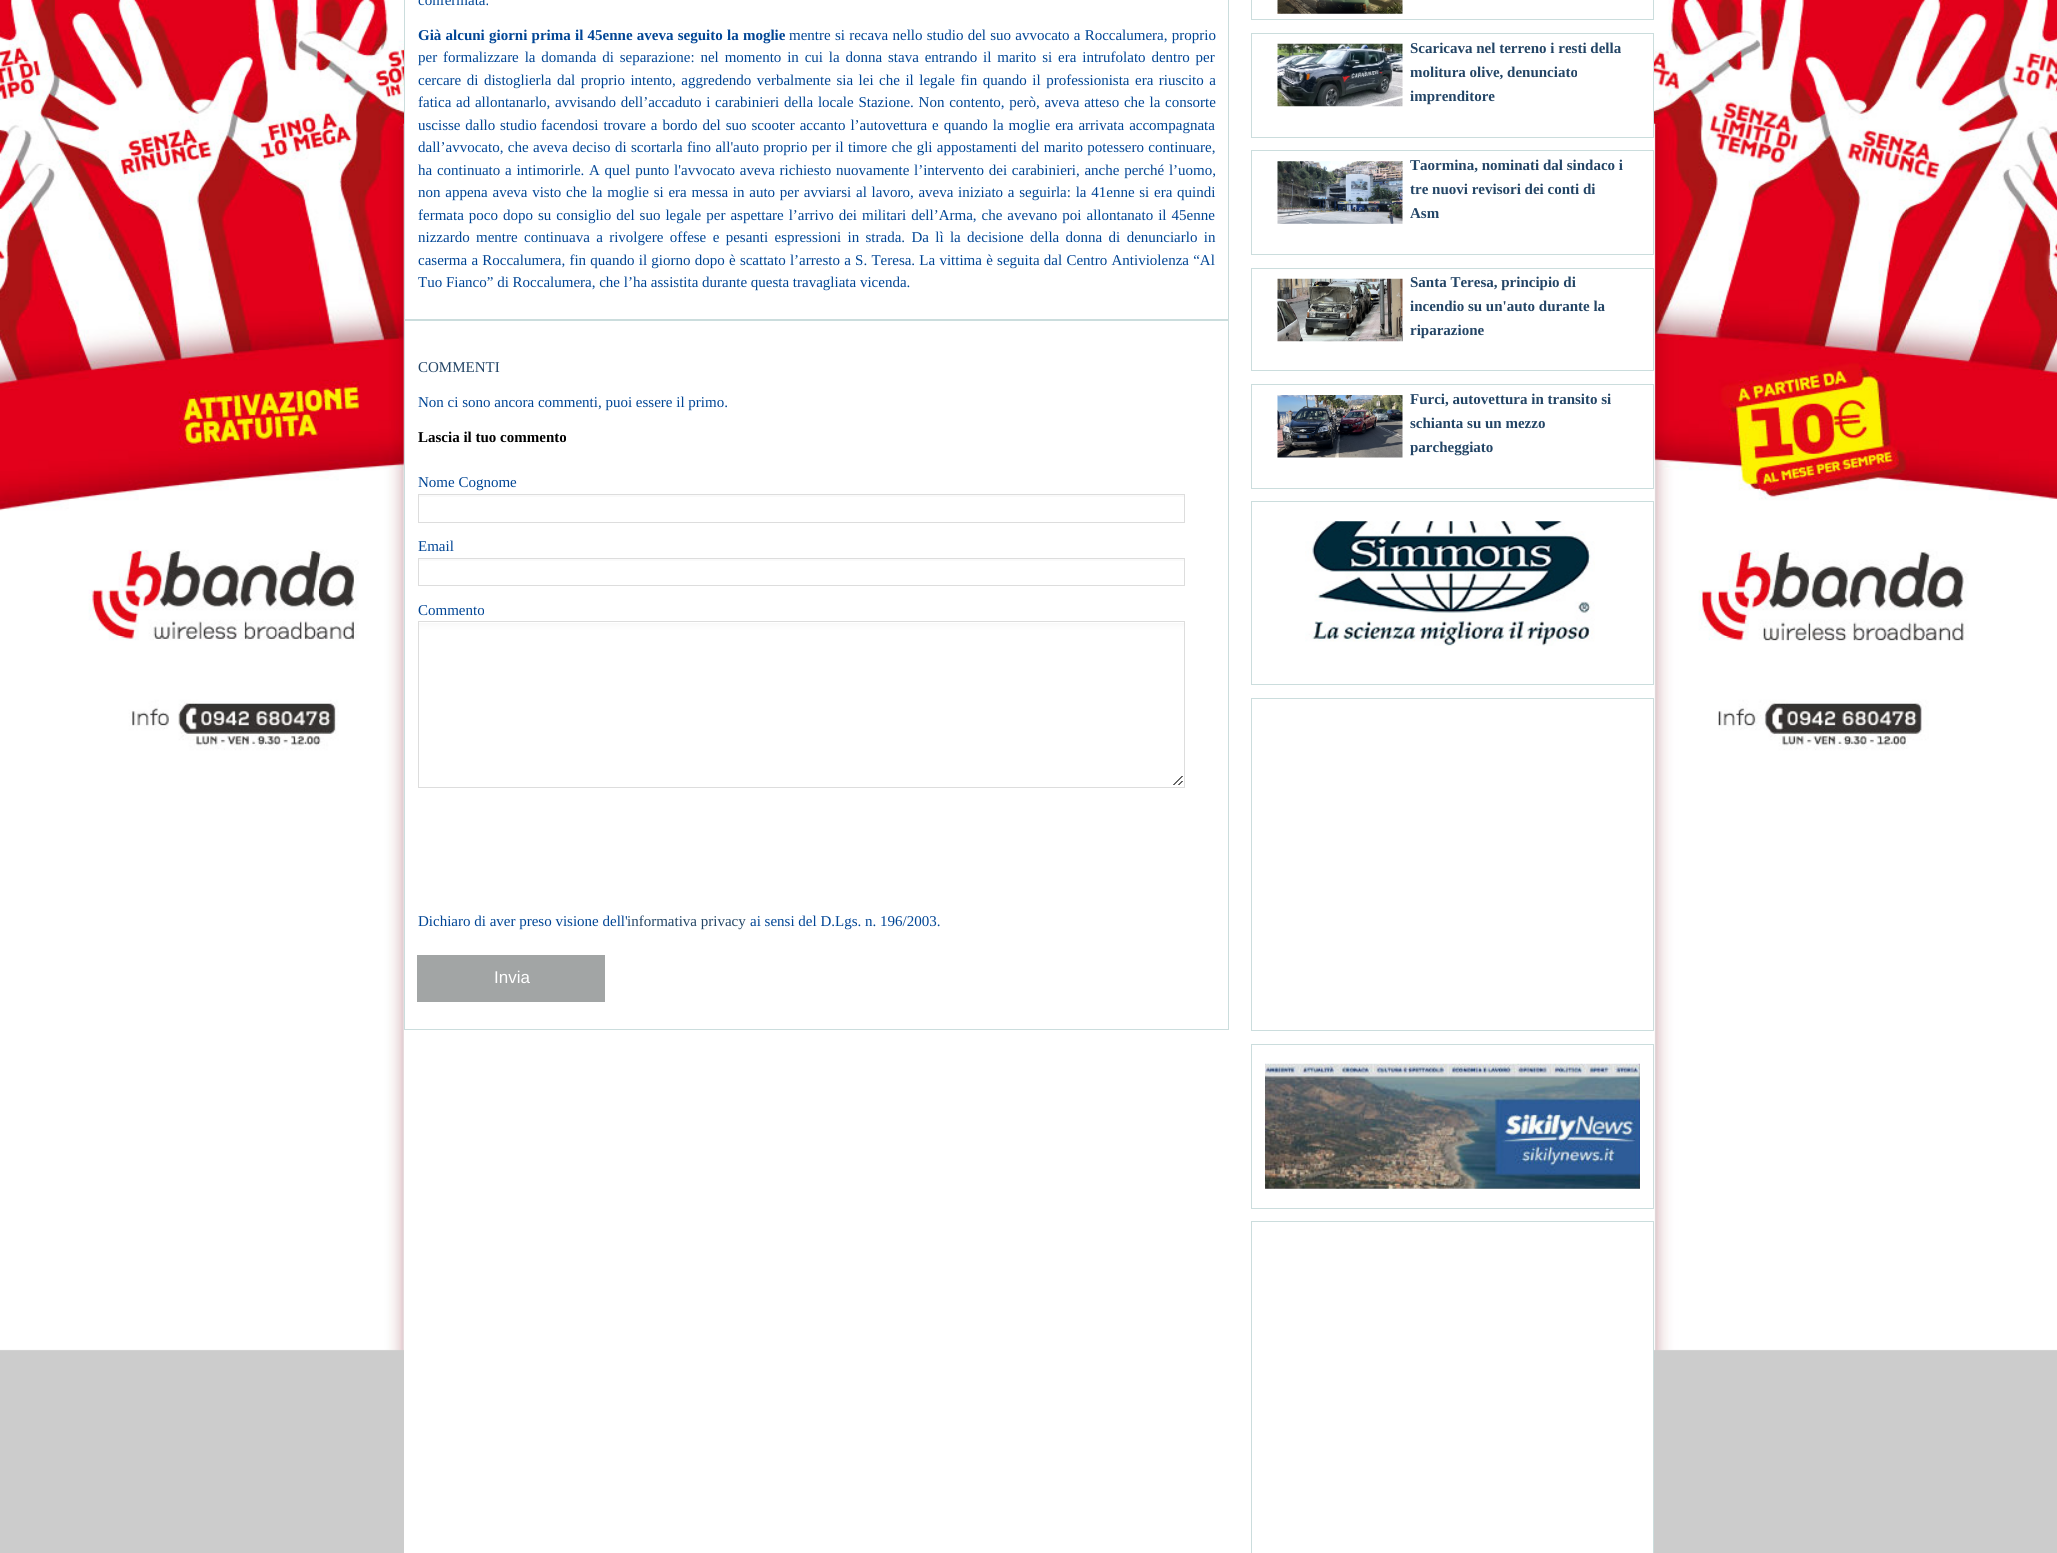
import math
import cairo

surface = cairo.ImageSurface(cairo.FORMAT_RGB24, 2057, 1553)
ctx = cairo.Context(surface)
options = cairo.FontOptions()
options.set_hint_metrics(cairo.HINT_METRICS_OFF)
options.set_hint_style(cairo.HINT_STYLE_NONE)
ctx.set_font_options(options)
ctx.set_miter_limit(4)


def set_color(code):
    ctx.set_source_rgb(*(v / 255 for v in bytes.fromhex(code[-6:])))


def draw_text(x, y, s, family, size, color, bold=False, italic=False):
    ctx.select_font_face(family, cairo.FONT_SLANT_ITALIC if italic else cairo.FONT_SLANT_NORMAL, cairo.FONT_WEIGHT_BOLD if bold else cairo.FONT_WEIGHT_NORMAL)
    ctx.set_font_size(size)
    set_color(color)
    ctx.move_to(x, y)
    ctx.show_text(s)


def draw_spaced(x, y, s, letter, word):
    ctx.move_to(x, y)
    for ch in s:
        ctx.show_text(ch)
        ctx.rel_move_to(letter + word * (ch == ' '), 0)


def fill_rect(x, y, w, h, color):
    set_color(color)
    ctx.rectangle(x, y, w, h)
    ctx.fill()


def draw_image(path, x, y, w, h):
    ctx.save()
    ctx.set_source_surface(cairo.ImageSurface.create_from_png(path), x, y)
    ctx.rectangle(x, y, w, h)
    ctx.fill()
    ctx.restore()


set_color("#cccccc")
ctx.paint()
draw_image("assets/img1.png", 0, 0, 2057, 1351)
fill_rect(404, 0, 1250, 1553, "#ffffff")
ctx.rectangle(404.5, -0.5, 824, 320)
set_color("#cbdddd")
ctx.set_line_width(1)
ctx.stroke()
draw_text(418, 5, "confermata.", "Liberation Serif", 15, "#004595")
ctx.select_font_face("Liberation Serif", cairo.FONT_SLANT_NORMAL, cairo.FONT_WEIGHT_BOLD)
draw_spaced(418, 40, "Già alcuni giorni prima il 45enne aveva seguito la moglie", 0, 0.5)
ctx.select_font_face("Liberation Serif")
draw_spaced(789, 40, "mentre si recava nello studio del suo avvocato a Roccalumera, proprio", 0, 0.5)
draw_spaced(418, 62, "per formalizzare la domanda di separazione: nel momento in cui la donna stava entrando il marito si era intrufolato dentro per", 0, 2.1)
draw_spaced(418, 85, "cercare di distoglierla dal proprio intento, aggredendo verbalmente sia lei che il legale fin quando il professionista era riuscito a", 0, 1.75)
draw_spaced(418, 107, "fatica ad allontanarlo, avvisando dell’accaduto i carabinieri della locale Stazione. Non contento, però, aveva atteso che la consorte", 0, 1)
draw_spaced(418, 130, "uscisse dallo studio", 0, 1)
draw_spaced(541, 130, "facendosi trovare a bordo del suo scooter accanto l’autovettura e quando la moglie era arrivata accompagnata", 0, 1.2)
draw_spaced(418, 152, "dall’avvocato, che aveva deciso di scortarla fino all'auto proprio per il timore che gli appostamenti del marito potessero continuare,", 0, 0.6)
draw_spaced(418, 175, "ha continuato a intimorirle. A quel punto l'avvocato aveva richiesto nuovamente l’intervento dei carabinieri, anche perché l’uomo,", 0, 1)
draw_spaced(418, 197, "non appena aveva visto che la moglie si era messa in auto per avviarsi al lavoro, aveva iniziato a seguirla: la 41enne si era quindi", 0, 1)
draw_spaced(418, 220, "fermata poco dopo su consiglio del suo legale per aspettare l’arrivo dei militari dell’Arma, che avevano poi allontanato il 45enne", 0, 1.25)
draw_spaced(418, 242, "nizzardo mentre continuava a rivolgere offese e pesanti espressioni in strada. Da lì la decisione della donna di denunciarlo in", 0, 2.6)
draw_spaced(418, 265, "caserma a Roccalumera, fin quando il giorno dopo è scattato l’arresto a S. Teresa. La vittima è seguita dal Centro Antiviolenza “Al", 0, 0.5)
draw_text(418, 287, "Tuo Fianco” di Roccalumera, che l’ha assistita durante questa travagliata vicenda.", "Liberation Serif", 15, "#004595")
ctx.rectangle(404.5, 320.5, 824, 709)
set_color("#cbdddd")
ctx.stroke()
draw_text(418, 372, "COMMENTI", "Liberation Serif", 15, "#234566")
draw_text(418, 407, "Non ci sono ancora commenti, puoi essere il primo.", "Liberation Serif", 15, "#004595")
draw_text(418, 442, "Lascia il tuo commento", "Liberation Serif", 15, "#000000", bold=True)
draw_text(418, 487, "Nome Cognome", "Liberation Serif", 15, "#004595")
fill_rect(418, 495, 767, 2, "#fafafa")
ctx.rectangle(418.5, 494.5, 766, 28)
set_color("#dddddd")
ctx.stroke()
draw_text(418, 551, "Email", "Liberation Serif", 15, "#004595")
fill_rect(418, 559, 767, 2, "#fafafa")
ctx.rectangle(418.5, 558.5, 766, 27)
set_color("#dddddd")
ctx.stroke()
draw_text(418, 615, "Commento", "Liberation Serif", 15, "#004595")
draw_image("assets/img2.png", 419, 623, 765, 162)
ctx.rectangle(418.5, 621.5, 766, 166)
set_color("#dddddd")
ctx.stroke()
draw_text(418, 926, "Dichiaro di aver preso visione dell'", "Liberation Serif", 15, "#004595")
draw_text(627, 926, "informativa privacy", "Liberation Serif", 15, "#234566")
draw_text(750, 926, "ai sensi del D.Lgs. n. 196/2003.", "Liberation Serif", 15, "#004595")
fill_rect(417, 955, 188, 47, "#a2a5a5")
draw_text(494, 983, "Invia", "Liberation Sans", 17, "#ffffff")
ctx.rectangle(1251.5, -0.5, 402, 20)
set_color("#cbdddd")
ctx.stroke()
draw_image("assets/img3.png", 1277, 0, 126, 14)
ctx.rectangle(1251.5, 33.5, 402, 104)
ctx.stroke()
draw_image("assets/img4.png", 1277, 43, 126, 64)
draw_text(1410, 53, "Scaricava nel terreno i resti della", "Liberation Serif", 15, "#234566", bold=True)
draw_text(1410, 77, "molitura olive, denunciato", "Liberation Serif", 15, "#234566", bold=True)
draw_text(1410, 101, "imprenditore", "Liberation Serif", 15, "#234566", bold=True)
ctx.rectangle(1251.5, 150.5, 402, 104)
set_color("#cbdddd")
ctx.stroke()
draw_image("assets/img5.png", 1277, 161, 126, 63)
draw_text(1410, 170, "Taormina, nominati dal sindaco i", "Liberation Serif", 15, "#234566", bold=True)
draw_text(1410, 194, "tre nuovi revisori dei conti di", "Liberation Serif", 15, "#234566", bold=True)
draw_text(1410, 218, "Asm", "Liberation Serif", 15, "#234566", bold=True)
ctx.rectangle(1251.5, 268.5, 402, 102)
set_color("#cbdddd")
ctx.stroke()
draw_image("assets/img6.png", 1277, 278, 126, 64)
draw_text(1410, 287, "Santa Teresa, principio di", "Liberation Serif", 15, "#234566", bold=True)
draw_text(1410, 311, "incendio su un'auto durante la", "Liberation Serif", 15, "#234566", bold=True)
draw_text(1410, 335, "riparazione", "Liberation Serif", 15, "#234566", bold=True)
ctx.rectangle(1251.5, 384.5, 402, 104)
set_color("#cbdddd")
ctx.stroke()
draw_image("assets/img7.png", 1277, 395, 126, 63)
draw_text(1410, 404, "Furci, autovettura in transito si", "Liberation Serif", 15, "#234566", bold=True)
draw_text(1410, 428, "schianta su un mezzo", "Liberation Serif", 15, "#234566", bold=True)
draw_text(1410, 452, "parcheggiato", "Liberation Serif", 15, "#234566", bold=True)
ctx.rectangle(1251.5, 501.5, 402, 183)
set_color("#cbdddd")
ctx.stroke()
draw_image("assets/img8.png", 1305, 521, 290, 125)
ctx.rectangle(1251.5, 698.5, 402, 332)
ctx.stroke()
ctx.rectangle(1251.5, 1044.5, 402, 164)
ctx.stroke()
draw_image("assets/img9.png", 1265, 1063, 375, 126)
ctx.rectangle(1251.5, 1221.5, 402, 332)
ctx.stroke()
surface.write_to_png("output.png")
